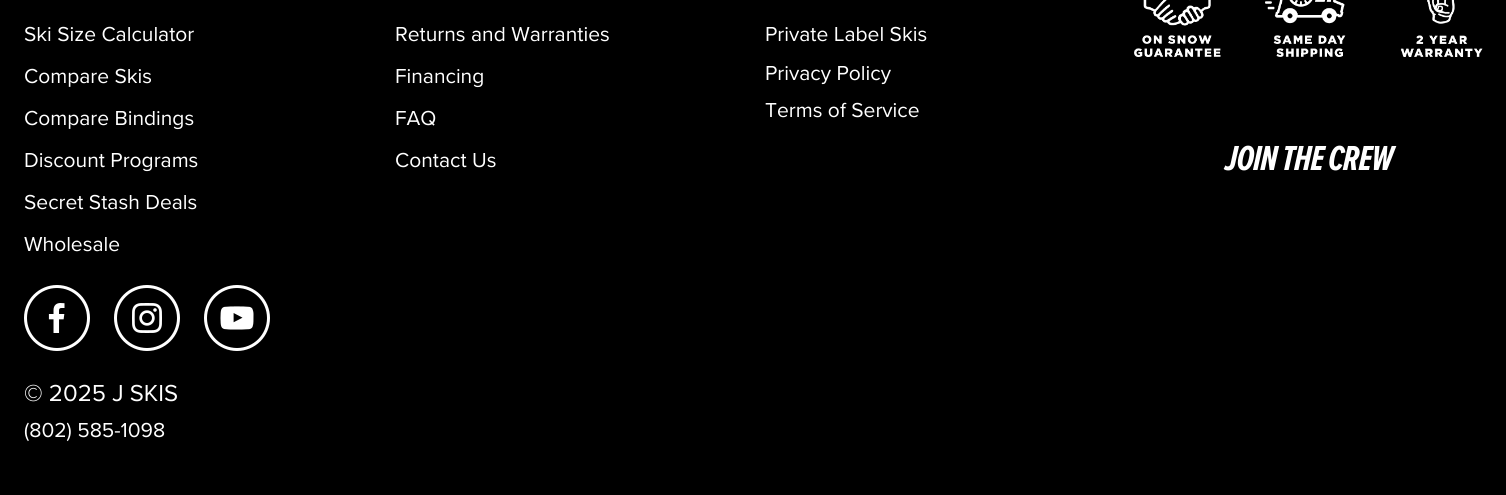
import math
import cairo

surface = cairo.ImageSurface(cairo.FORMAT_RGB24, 1506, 495)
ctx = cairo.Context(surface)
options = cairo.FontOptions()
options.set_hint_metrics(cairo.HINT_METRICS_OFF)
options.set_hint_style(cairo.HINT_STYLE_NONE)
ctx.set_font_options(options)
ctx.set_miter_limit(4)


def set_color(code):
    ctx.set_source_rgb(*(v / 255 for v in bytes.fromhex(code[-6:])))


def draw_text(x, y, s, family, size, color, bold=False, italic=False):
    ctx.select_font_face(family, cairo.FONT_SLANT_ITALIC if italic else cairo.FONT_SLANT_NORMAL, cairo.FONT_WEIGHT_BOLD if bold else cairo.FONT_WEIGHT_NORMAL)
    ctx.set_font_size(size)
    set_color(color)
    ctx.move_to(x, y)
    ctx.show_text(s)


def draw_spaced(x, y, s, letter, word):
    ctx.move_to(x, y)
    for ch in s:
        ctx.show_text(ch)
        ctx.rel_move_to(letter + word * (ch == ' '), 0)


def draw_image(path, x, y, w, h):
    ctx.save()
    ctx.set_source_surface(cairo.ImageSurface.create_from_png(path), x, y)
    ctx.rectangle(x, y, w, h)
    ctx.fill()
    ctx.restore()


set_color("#000000")
ctx.paint()
draw_text(24, 41, "Ski Size Calculator", "Proxima Nova", 21, "#ffffff")
draw_text(24, 83, "Compare Skis", "Proxima Nova", 21, "#ffffff")
draw_text(24, 125, "Compare Bindings", "Proxima Nova", 21, "#ffffff")
draw_text(24, 167, "Discount Programs", "Proxima Nova", 21, "#ffffff")
draw_text(24, 209, "Secret Stash Deals", "Proxima Nova", 21, "#ffffff")
draw_text(24, 251, "Wholesale", "Proxima Nova", 21, "#ffffff")
draw_text(395, 41, "Returns and Warranties", "Proxima Nova", 21, "#ffffff")
draw_text(395, 83, "Financing", "Proxima Nova", 21, "#ffffff")
draw_text(395, 125, "FAQ", "Proxima Nova", 21, "#ffffff")
draw_text(395, 167, "Contact Us", "Proxima Nova", 21, "#ffffff")
draw_text(765, 41, "Private Label Skis", "Proxima Nova", 21, "#ffffff")
draw_text(765, 80, "Privacy Policy", "Proxima Nova", 21, "#ffffff")
draw_text(765, 117, "Terms of Service", "Proxima Nova", 21, "#ffffff")
draw_image("assets/img1.png", 1134, 0, 87, 57)
draw_image("assets/img2.png", 1265, 0, 81, 57)
draw_image("assets/img3.png", 1400, 0, 83, 57)
ctx.select_font_face("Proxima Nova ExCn", cairo.FONT_SLANT_ITALIC, cairo.FONT_WEIGHT_BOLD)
ctx.set_font_size(36)
draw_spaced(1225, 170, "JOIN THE CREW", -0.9, 0)
ctx.new_path()
ctx.arc(57, 318, 31.5, 0, 2 * math.pi)
ctx.set_line_width(3)
ctx.stroke()
draw_image("assets/img4.png", 48, 303, 17, 30)
ctx.arc(147, 318, 31.5, 0, 2 * math.pi)
ctx.stroke()
draw_image("assets/img5.png", 132, 303, 30, 30)
ctx.arc(237, 318, 31.5, 0, 2 * math.pi)
ctx.stroke()
draw_image("assets/img6.png", 220, 306, 34, 24)
draw_text(24, 401, "© 2025 J SKIS", "Proxima Nova", 24, "#ffffff")
draw_text(24, 437, "(802) 585-1098", "Proxima Nova", 21, "#ffffff")
surface.write_to_png("output.png")
